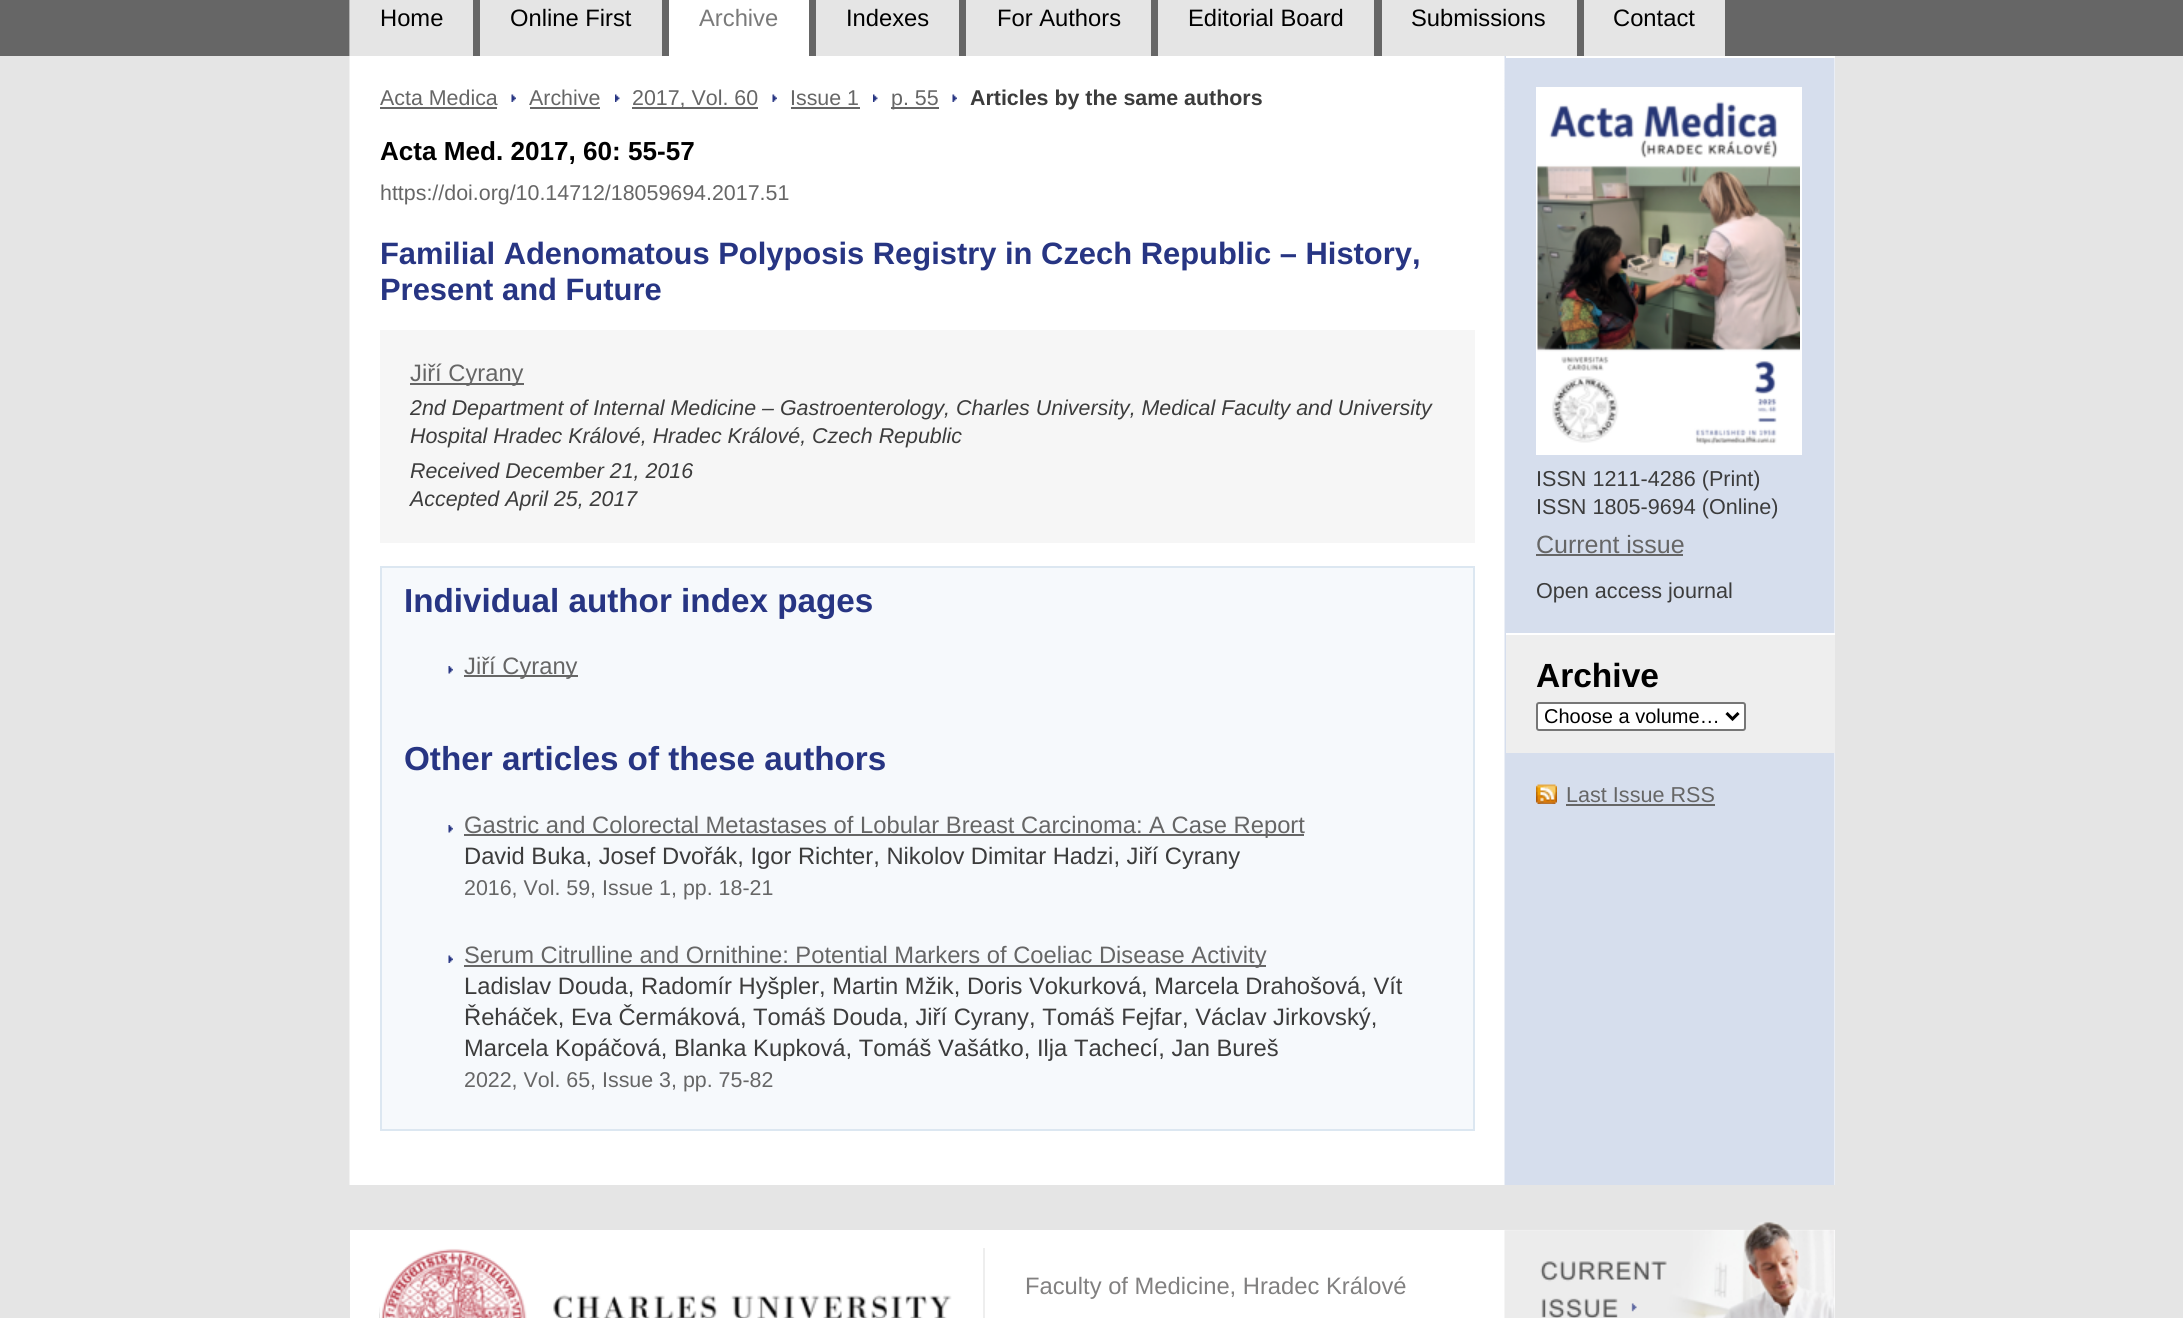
import math
import cairo

surface = cairo.ImageSurface(cairo.FORMAT_RGB24, 2183, 1318)
ctx = cairo.Context(surface)
options = cairo.FontOptions()
options.set_hint_metrics(cairo.HINT_METRICS_OFF)
options.set_hint_style(cairo.HINT_STYLE_NONE)
ctx.set_font_options(options)
ctx.set_miter_limit(4)


def set_color(code):
    ctx.set_source_rgb(*(v / 255 for v in bytes.fromhex(code[-6:])))


def draw_text(x, y, s, family, size, color, bold=False, italic=False):
    ctx.select_font_face(family, cairo.FONT_SLANT_ITALIC if italic else cairo.FONT_SLANT_NORMAL, cairo.FONT_WEIGHT_BOLD if bold else cairo.FONT_WEIGHT_NORMAL)
    ctx.set_font_size(size)
    set_color(color)
    ctx.move_to(x, y)
    ctx.show_text(s)


def fill_rect(x, y, w, h, color):
    set_color(color)
    ctx.rectangle(x, y, w, h)
    ctx.fill()


def rounded_rect(x, y, w, h, r):
    ctx.new_sub_path()
    for i, (u, v) in enumerate([(x + w - r, y + h - r), (x + r, y + h - r), (x + r, y + r), (x + w - r, y + r)]):
        ctx.arc(u, v, r, i * math.pi / 2, (i + 1) * math.pi / 2)
    ctx.close_path()


def draw_image(path, x, y, w, h):
    ctx.save()
    ctx.set_source_surface(cairo.ImageSurface.create_from_png(path), x, y)
    ctx.rectangle(x, y, w, h)
    ctx.fill()
    ctx.restore()


set_color("#e5e5e5")
ctx.paint()
fill_rect(0, 0, 2183, 56, "#666666")
fill_rect(1834, 58, 1, 1127, "#ffffff")
draw_image("assets/img1.png", 349, 0, 1486, 1185)
fill_rect(473, 0, 1362, 56, "#666666")
fill_rect(350, 0, 123, 56, "#e5e5e5")
draw_text(380, 26, "Home", "Liberation Sans", 23.75, "#000000")
fill_rect(480, 0, 182, 56, "#e5e5e5")
draw_text(510, 26, "Online First", "Liberation Sans", 23.75, "#000000")
fill_rect(669, 0, 140, 56, "#ffffff")
draw_text(699, 26, "Archive", "Liberation Sans", 23.75, "#7a7a7a")
fill_rect(816, 0, 143, 56, "#e5e5e5")
draw_text(846, 26, "Indexes", "Liberation Sans", 23.75, "#000000")
fill_rect(966, 0, 185, 56, "#e5e5e5")
draw_text(997, 26, "For Authors", "Liberation Sans", 23.75, "#000000")
fill_rect(1158, 0, 216, 56, "#e5e5e5")
draw_text(1188, 26, "Editorial Board", "Liberation Sans", 23.75, "#000000")
fill_rect(1382, 0, 195, 56, "#e5e5e5")
draw_text(1411, 26, "Submissions", "Liberation Sans", 23.75, "#000000")
fill_rect(1584, 0, 141, 56, "#e5e5e5")
draw_text(1613, 26, "Contact", "Liberation Sans", 23.75, "#000000")
draw_text(380, 105, "Acta Medica", "Liberation Sans", 21.4, "#666666")
fill_rect(380, 107, 117, 2, "#666666")
draw_image("assets/img2.png", 511, 94, 5, 8)
draw_text(529, 105, "Archive", "Liberation Sans", 21.4, "#666666")
fill_rect(530, 107, 70, 2, "#666666")
draw_image("assets/img3.png", 615, 94, 5, 8)
fill_rect(632, 107, 126, 2, "#666666")
draw_text(632, 105, "2017, Vol. 60", "Liberation Sans", 21.4, "#666666")
draw_image("assets/img4.png", 772, 94, 5, 8)
draw_text(790, 105, "Issue 1", "Liberation Sans", 21.4, "#666666")
fill_rect(791, 107, 69, 2, "#666666")
draw_image("assets/img3.png", 873, 94, 5, 8)
fill_rect(891, 107, 48, 2, "#666666")
draw_text(891, 105, "p. 55", "Liberation Sans", 21.4, "#666666")
draw_image("assets/img4.png", 952, 94, 5, 8)
draw_text(970, 105, "Articles by the same authors", "Liberation Sans", 21.4, "#3c3c3c", bold=True)
draw_text(380, 160, "Acta Med. 2017, 60: 55-57", "Liberation Sans", 26.1, "#000000", bold=True)
draw_text(380, 200, "https://doi.org/10.14712/18059694.2017.51", "Liberation Sans", 21.4, "#666666")
draw_text(380, 264, "Familial Adenomatous Polyposis Registry in Czech Republic – History,", "Liberation Sans", 30.9, "#273583", bold=True)
draw_text(380, 300, "Present and Future", "Liberation Sans", 30.9, "#273583", bold=True)
fill_rect(380, 330, 1095, 213, "#f6f6f6")
fill_rect(410, 383, 114, 2, "#666666")
draw_text(410, 381, "Jiří Cyrany", "Liberation Sans", 23.75, "#666666")
draw_text(410, 415, "2nd Department of Internal Medicine – Gastroenterology, Charles University, Medical Faculty and University", "Liberation Sans", 21.4, "#3c3c3c", italic=True)
draw_text(410, 443, "Hospital Hradec Králové, Hradec Králové, Czech Republic", "Liberation Sans", 21.4, "#3c3c3c", italic=True)
draw_text(410, 478, "Received December 21, 2016", "Liberation Sans", 21.4, "#3c3c3c", italic=True)
draw_text(410, 506, "Accepted April 25, 2017", "Liberation Sans", 21.4, "#3c3c3c", italic=True)
set_color("#f6f9fc")
ctx.rectangle(381, 567, 1093, 563)
ctx.fill_preserve()
set_color("#dce7f1")
ctx.stroke()
draw_text(404, 612, "Individual author index pages", "Liberation Sans", 33.25, "#273583", bold=True)
draw_image("assets/img5.png", 448, 666, 5, 8)
fill_rect(464, 675, 114, 2, "#666666")
draw_text(464, 674, "Jiří Cyrany", "Liberation Sans", 23.75, "#666666")
draw_text(404, 770, "Other articles of these authors", "Liberation Sans", 33.25, "#273583", bold=True)
draw_image("assets/img5.png", 448, 825, 5, 8)
fill_rect(464, 834, 840, 2, "#666666")
draw_text(464, 833, "Gastric and Colorectal Metastases of Lobular Breast Carcinoma: A Case Report", "Liberation Sans", 23.75, "#666666")
draw_text(464, 864, "David Buka, Josef Dvořák, Igor Richter, Nikolov Dimitar Hadzi, Jiří Cyrany", "Liberation Sans", 23.75, "#3c3c3c")
draw_text(464, 895, "2016, Vol. 59, Issue 1, pp. 18-21", "Liberation Sans", 21.4, "#666666")
draw_image("assets/img6.png", 448, 955, 5, 8)
fill_rect(464, 965, 802, 2, "#666666")
draw_text(464, 963, "Serum Citrulline and Ornithine: Potential Markers of Coeliac Disease Activity", "Liberation Sans", 23.75, "#666666")
draw_text(464, 994, "Ladislav Douda, Radomír Hyšpler, Martin Mžik, Doris Vokurková, Marcela Drahošová, Vít", "Liberation Sans", 23.75, "#3c3c3c")
draw_text(464, 1025, "Řeháček, Eva Čermáková, Tomáš Douda, Jiří Cyrany, Tomáš Fejfar, Václav Jirkovský,", "Liberation Sans", 23.75, "#3c3c3c")
draw_text(464, 1056, "Marcela Kopáčová, Blanka Kupková, Tomáš Vašátko, Ilja Tachecí, Jan Bureš", "Liberation Sans", 23.75, "#3c3c3c")
draw_text(464, 1087, "2022, Vol. 65, Issue 3, pp. 75-82", "Liberation Sans", 21.4, "#666666")
fill_rect(1506, 56, 329, 2, "#ffffff")
ctx.rectangle(1537, 88, 264, 366)
ctx.stroke()
draw_image("assets/img7.png", 1537, 89, 263, 364)
draw_text(1536, 486, "ISSN 1211-4286 (Print)", "Liberation Sans", 21.6, "#3c3c3c")
draw_text(1536, 514, "ISSN 1805-9694 (Online)", "Liberation Sans", 21.6, "#3c3c3c")
draw_text(1536, 553, "Current issue", "Liberation Sans", 25, "#666666")
fill_rect(1536, 554, 147, 2, "#666666")
draw_text(1536, 598, "Open access journal", "Liberation Sans", 21.6, "#3c3c3c")
fill_rect(1506, 635, 329, 118, "#eeeeee")
fill_rect(1506, 633, 329, 2, "#ffffff")
draw_text(1536, 687, "Archive", "Liberation Sans", 33.5, "#000000", bold=True)
set_color("#ffffff")
rounded_rect(1537, 703, 208, 27, 2)
ctx.fill_preserve()
set_color("#767676")
ctx.stroke()
ctx.new_path()
ctx.move_to(1726.5, 713)
ctx.line_to(1732.5, 719)
ctx.line_to(1738.5, 713)
set_color("#000000")
ctx.set_line_width(3)
ctx.stroke()
draw_text(1544, 723, "Choose a volume…", "Liberation Sans", 20, "#000000")
draw_image("assets/img8.png", 1536, 784, 21, 20)
draw_text(1566, 802, "Last Issue RSS", "Liberation Sans", 21.6, "#666666")
fill_rect(1566, 804, 149, 2, "#666666")
fill_rect(350, 1230, 1485, 88, "#ffffff")
draw_image("assets/img9.png", 379, 1306, 1, 12)
fill_rect(983, 1248, 2, 70, "#eeeeee")
draw_image("assets/img10.png", 379, 1248, 573, 70)
draw_text(1025, 1294, "Faculty of Medicine, Hradec Králové", "Liberation Sans", 23.75, "#818080")
draw_image("assets/img11.png", 1504, 1221, 331, 97)
surface.write_to_png("output.png")
